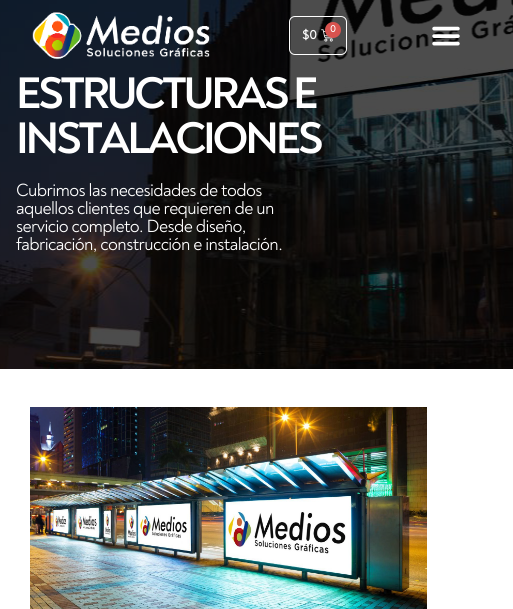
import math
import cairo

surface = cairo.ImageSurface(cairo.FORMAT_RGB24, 513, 609)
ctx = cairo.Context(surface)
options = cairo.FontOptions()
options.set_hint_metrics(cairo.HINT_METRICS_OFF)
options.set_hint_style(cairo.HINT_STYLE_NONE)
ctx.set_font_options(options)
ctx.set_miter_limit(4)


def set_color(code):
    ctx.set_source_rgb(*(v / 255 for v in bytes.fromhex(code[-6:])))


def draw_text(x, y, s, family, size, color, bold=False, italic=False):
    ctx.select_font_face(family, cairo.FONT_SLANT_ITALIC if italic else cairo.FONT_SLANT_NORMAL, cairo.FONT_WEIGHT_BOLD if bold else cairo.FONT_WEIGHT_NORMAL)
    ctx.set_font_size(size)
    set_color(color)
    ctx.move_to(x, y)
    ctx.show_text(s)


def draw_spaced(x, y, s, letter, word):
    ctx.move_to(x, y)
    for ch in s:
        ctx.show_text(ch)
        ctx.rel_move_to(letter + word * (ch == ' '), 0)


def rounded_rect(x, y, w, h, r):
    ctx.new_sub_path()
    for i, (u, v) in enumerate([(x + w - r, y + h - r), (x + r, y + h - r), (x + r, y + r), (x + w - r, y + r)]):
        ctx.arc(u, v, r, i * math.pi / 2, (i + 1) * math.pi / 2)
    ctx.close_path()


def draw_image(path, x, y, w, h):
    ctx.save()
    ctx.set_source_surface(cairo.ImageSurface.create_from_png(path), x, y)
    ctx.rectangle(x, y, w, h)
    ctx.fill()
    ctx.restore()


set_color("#ffffff")
ctx.paint()
draw_image("assets/img4.png", 0, 0, 513, 369)
draw_image("assets/img1.png", 32, 12, 178, 48)
rounded_rect(289.5, 16.5, 57, 38, 5.5)
set_color("#ffffff")
ctx.set_line_width(1)
ctx.stroke()
draw_text(302, 39, "$0", "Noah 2", 13, "#ffffff", bold=True)
draw_image("assets/img2.png", 321, 29, 12, 13)
set_color("#d9534f")
ctx.arc(333, 30, 8, 0, 2 * math.pi)
ctx.fill()
draw_text(330, 32, "0", "Noah 2", 10, "#ffffff", bold=True)
draw_image("assets/img3.png", 432, 26, 28, 20)
ctx.select_font_face("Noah", cairo.FONT_SLANT_NORMAL, cairo.FONT_WEIGHT_BOLD)
ctx.set_font_size(45)
draw_spaced(16, 108, "ESTRUCTURAS E", -3.25, 0)
draw_spaced(16, 153, "INSTALACIONES", -3.25, 0)
ctx.select_font_face("Noah")
ctx.set_font_size(18)
draw_spaced(16, 196, "Cubrimos las necesidades de todos", -0.6, 0)
draw_spaced(16, 214, "aquellos clientes que requieren de un", -0.6, 0)
draw_spaced(16, 232, "servicio completo. Desde diseño,", -0.6, 0)
draw_spaced(16, 250, "fabricación, construcción e instalación.", -0.6, 0)
draw_image("assets/img5.png", 30, 407, 397, 202)
surface.write_to_png("output.png")
